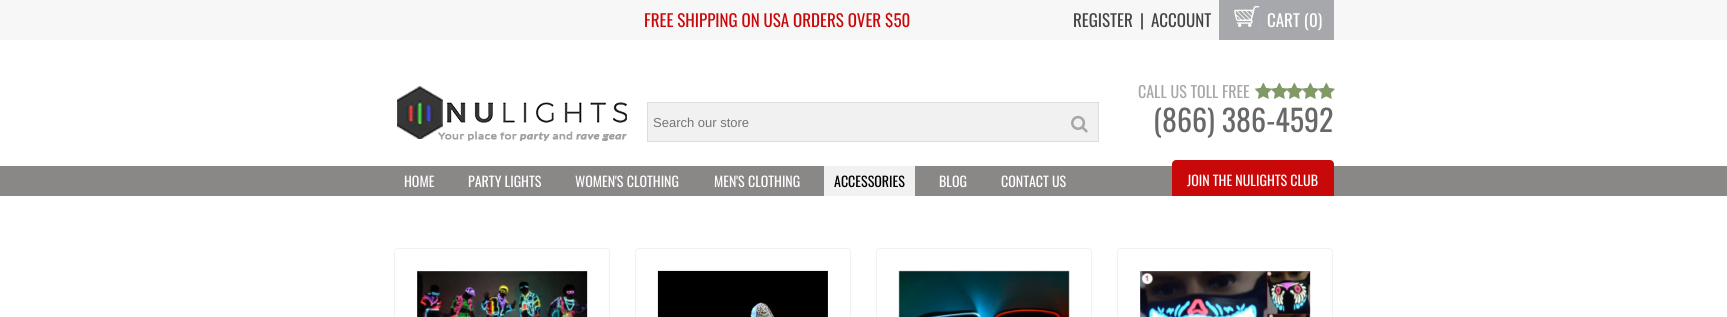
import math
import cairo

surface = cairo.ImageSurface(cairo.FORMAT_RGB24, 1727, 317)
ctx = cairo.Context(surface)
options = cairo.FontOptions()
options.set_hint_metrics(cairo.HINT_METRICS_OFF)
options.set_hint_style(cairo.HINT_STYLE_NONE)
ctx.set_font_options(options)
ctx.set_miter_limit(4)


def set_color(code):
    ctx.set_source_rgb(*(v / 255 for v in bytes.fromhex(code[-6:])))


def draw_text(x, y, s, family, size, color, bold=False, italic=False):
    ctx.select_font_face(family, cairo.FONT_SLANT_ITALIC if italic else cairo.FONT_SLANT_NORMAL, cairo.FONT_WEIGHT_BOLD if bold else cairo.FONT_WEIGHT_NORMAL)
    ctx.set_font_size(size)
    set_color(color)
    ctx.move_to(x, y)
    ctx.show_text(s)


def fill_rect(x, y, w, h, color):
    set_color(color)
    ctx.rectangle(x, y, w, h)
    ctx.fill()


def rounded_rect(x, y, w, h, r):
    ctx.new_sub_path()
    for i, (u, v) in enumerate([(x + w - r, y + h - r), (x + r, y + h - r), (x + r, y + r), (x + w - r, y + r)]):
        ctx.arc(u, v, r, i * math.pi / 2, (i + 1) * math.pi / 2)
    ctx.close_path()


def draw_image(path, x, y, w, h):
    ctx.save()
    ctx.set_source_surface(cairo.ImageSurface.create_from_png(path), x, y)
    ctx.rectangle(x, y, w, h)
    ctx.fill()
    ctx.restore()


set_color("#ffffff")
ctx.paint()
fill_rect(0, 0, 1727, 40, "#f7f7f7")
draw_text(644, 27, "FREE SHIPPING ON USA ORDERS OVER $50", "Oswald", 17, "#c90909")
draw_text(1073, 27, "REGISTER", "Oswald", 17, "#444444")
draw_text(1140, 27, "|", "Oswald", 17, "#444444")
draw_text(1151, 27, "ACCOUNT", "Oswald", 17, "#444444")
fill_rect(1219, 0, 115, 40, "#a6a8ab")
draw_image("assets/img1.png", 1234, 0, 28, 32)
draw_text(1267, 27, "CART (0)", "Oswald", 17, "#ffffff")
draw_image("assets/img2.png", 397, 86, 230, 55)
set_color("#f2f1f1")
ctx.rectangle(647.5, 102.5, 451, 39)
ctx.fill_preserve()
set_color("#dddddd")
ctx.set_line_width(1)
ctx.stroke()
draw_text(653, 127, "Search our store", "Liberation Sans", 13, "#757575")
draw_image("assets/img3.png", 1071, 115, 17, 18)
draw_text(1138, 98, "CALL US TOLL FREE", "Oswald", 16, "#a5a7a9")
draw_image("assets/img4.png", 1255, 82, 17, 17)
draw_image("assets/img5.png", 1271, 82, 17, 17)
draw_image("assets/img6.png", 1286, 82, 17, 17)
draw_image("assets/img5.png", 1302, 82, 17, 17)
draw_image("assets/img5.png", 1318, 82, 17, 17)
draw_text(1153, 132, "(866) 386-4592", "Oswald", 30, "#686868")
fill_rect(0, 166, 1727, 30, "#8a8787")
draw_text(404, 187, "HOME", "Oswald", 14, "#ffffff")
draw_text(468, 187, "PARTY LIGHTS", "Oswald", 14, "#ffffff")
draw_text(575, 187, "WOMEN'S CLOTHING", "Oswald", 14, "#ffffff")
draw_text(714, 187, "MEN'S CLOTHING", "Oswald", 14, "#ffffff")
fill_rect(824, 166, 91, 30, "#f1f1f2")
draw_text(834, 187, "ACCESSORIES", "Oswald", 14, "#000000")
draw_text(939, 187, "BLOG", "Oswald", 14, "#ffffff")
draw_text(1001, 187, "CONTACT US", "Oswald", 14, "#ffffff")
set_color("#c90909")
ctx.new_path()
ctx.move_to(1176, 160)
ctx.line_to(1330, 160)
ctx.curve_to(1332, 160, 1334, 162, 1334, 164)
ctx.line_to(1334, 196)
ctx.line_to(1172, 196)
ctx.line_to(1172, 164)
ctx.curve_to(1172, 162, 1174, 160, 1176, 160)
ctx.close_path()
ctx.fill()
draw_text(1187, 186, "JOIN THE NULIGHTS CLUB", "Oswald", 14, "#ffffff")
rounded_rect(394.5, 248.5, 215, 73, 3.5)
set_color("#f1f1f1")
ctx.stroke()
draw_image("assets/img7.png", 417, 271, 171, 46)
rounded_rect(635.5, 248.5, 215, 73, 3.5)
ctx.stroke()
draw_image("assets/img8.png", 657, 270, 171, 47)
rounded_rect(876.5, 248.5, 215, 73, 3.5)
ctx.stroke()
draw_image("assets/img9.png", 898, 270, 172, 47)
rounded_rect(1117.5, 248.5, 215, 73, 3.5)
ctx.stroke()
draw_image("assets/img10.png", 1140, 271, 171, 46)
surface.write_to_png("output.png")
